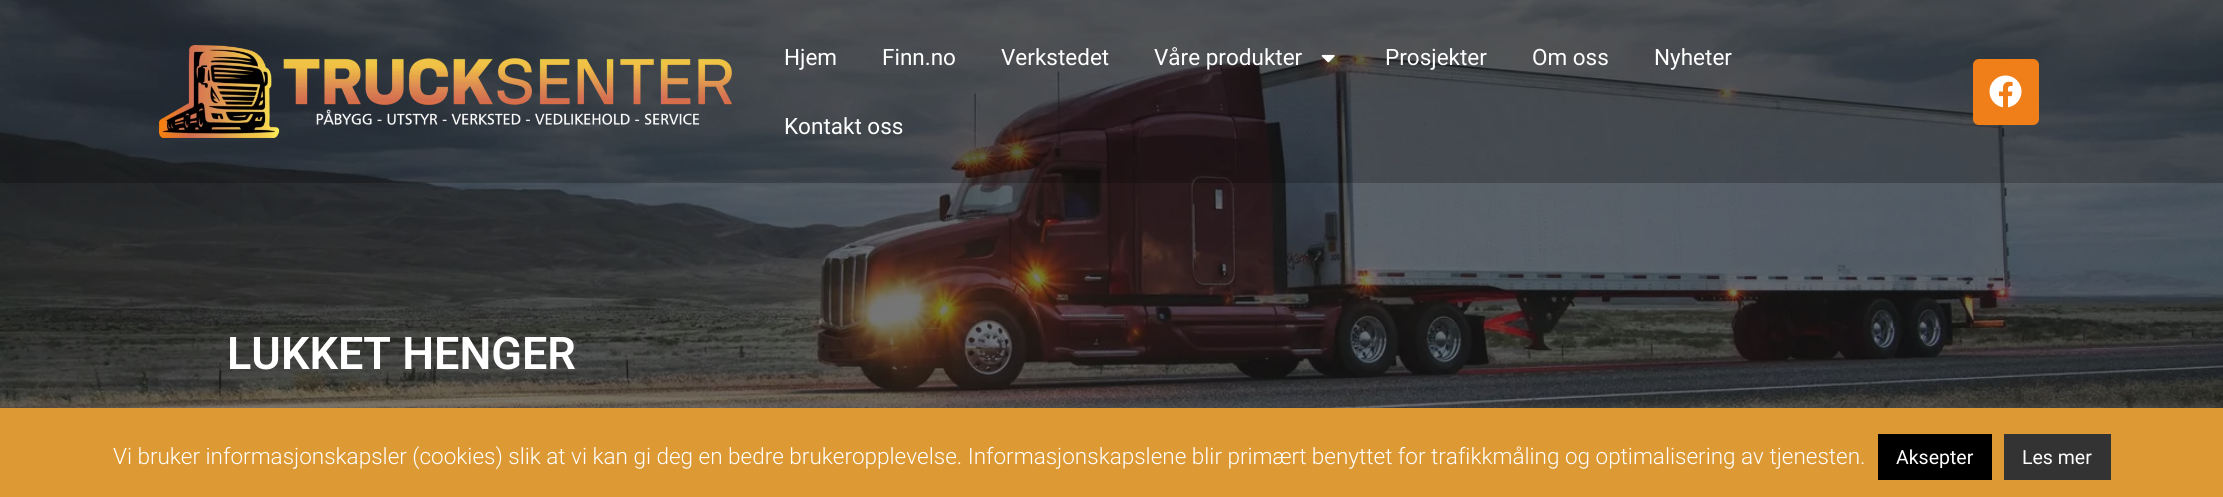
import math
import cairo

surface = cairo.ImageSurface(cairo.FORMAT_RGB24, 2223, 497)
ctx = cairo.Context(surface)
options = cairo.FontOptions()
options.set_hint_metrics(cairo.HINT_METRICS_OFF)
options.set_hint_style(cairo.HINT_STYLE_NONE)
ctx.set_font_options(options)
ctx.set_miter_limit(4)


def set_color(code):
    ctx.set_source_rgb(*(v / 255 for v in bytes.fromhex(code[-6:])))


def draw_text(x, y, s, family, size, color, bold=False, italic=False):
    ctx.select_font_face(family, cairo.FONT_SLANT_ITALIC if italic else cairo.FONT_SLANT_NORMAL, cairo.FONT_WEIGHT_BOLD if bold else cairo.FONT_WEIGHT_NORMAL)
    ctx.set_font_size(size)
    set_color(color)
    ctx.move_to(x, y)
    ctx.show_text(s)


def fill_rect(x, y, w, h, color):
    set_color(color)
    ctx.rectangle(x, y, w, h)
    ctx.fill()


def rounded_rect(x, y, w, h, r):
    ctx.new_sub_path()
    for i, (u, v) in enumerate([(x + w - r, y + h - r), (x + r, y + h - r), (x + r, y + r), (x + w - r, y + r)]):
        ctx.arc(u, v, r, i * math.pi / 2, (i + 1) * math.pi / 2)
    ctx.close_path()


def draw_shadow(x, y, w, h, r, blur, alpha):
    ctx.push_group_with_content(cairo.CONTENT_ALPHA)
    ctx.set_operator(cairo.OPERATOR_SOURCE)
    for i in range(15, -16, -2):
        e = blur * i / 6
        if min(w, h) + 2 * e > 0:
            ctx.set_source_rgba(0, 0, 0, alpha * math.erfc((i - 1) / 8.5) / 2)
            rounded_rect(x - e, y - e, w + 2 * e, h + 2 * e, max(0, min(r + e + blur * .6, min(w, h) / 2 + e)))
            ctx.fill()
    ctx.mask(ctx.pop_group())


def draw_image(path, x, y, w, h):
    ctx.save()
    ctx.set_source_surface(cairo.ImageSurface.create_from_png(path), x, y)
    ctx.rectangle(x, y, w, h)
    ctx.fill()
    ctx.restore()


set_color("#ffffff")
ctx.paint()
draw_image("assets/img4.png", 0, 0, 2223, 408)
ctx.set_source_rgba(0, 0, 0, 0.23)
ctx.rectangle(0, 0, 2223, 183)
ctx.fill()
draw_image("assets/img1.png", 159, 45, 573, 93)
draw_text(784, 65, "Hjem", "Roboto", 22.5, "#ffffff")
draw_text(882, 65, "Finn.no", "Roboto", 22.5, "#ffffff")
draw_text(1001, 65, "Verkstedet", "Roboto", 22.5, "#ffffff")
draw_text(1154, 65, "Våre produkter", "Roboto", 22.5, "#ffffff")
draw_image("assets/img2.png", 1321, 54, 14, 9)
draw_text(1385, 65, "Prosjekter", "Roboto", 22.5, "#ffffff")
draw_text(1532, 65, "Om oss", "Roboto", 22.5, "#ffffff")
draw_text(1654, 65, "Nyheter", "Roboto", 22.5, "#ffffff")
draw_text(784, 134, "Kontakt oss", "Roboto", 22.5, "#ffffff")
set_color("#f07f19")
rounded_rect(1973, 59, 66, 66, 6)
ctx.fill()
draw_image("assets/img3.png", 1989, 75, 33, 33)
draw_text(227, 369, "LUKKET HENGER", "Roboto SemiBold", 45, "#ffffff")
set_color("#acabab")
draw_shadow(0, 407, 2223, 90, 0, 7.5, 0.3)
fill_rect(0, 408, 2223, 89, "#dd9933")
draw_text(113, 464, "Vi bruker informasjonskapsler (cookies) slik at vi kan gi deg en bedre brukeropplevelse. Informasjonskapslene blir primært benyttet for trafikkmåling og optimalisering av tjenesten.", "Roboto Light", 22.5, "#ffffff")
fill_rect(1878, 434, 114, 46, "#000000")
draw_text(1896, 464, "Aksepter", "Roboto", 19.5, "#ffffff")
fill_rect(2004, 434, 107, 46, "#333333")
draw_text(2022, 464, "Les mer", "Roboto", 19.5, "#ffffff")
surface.write_to_png("output.png")
